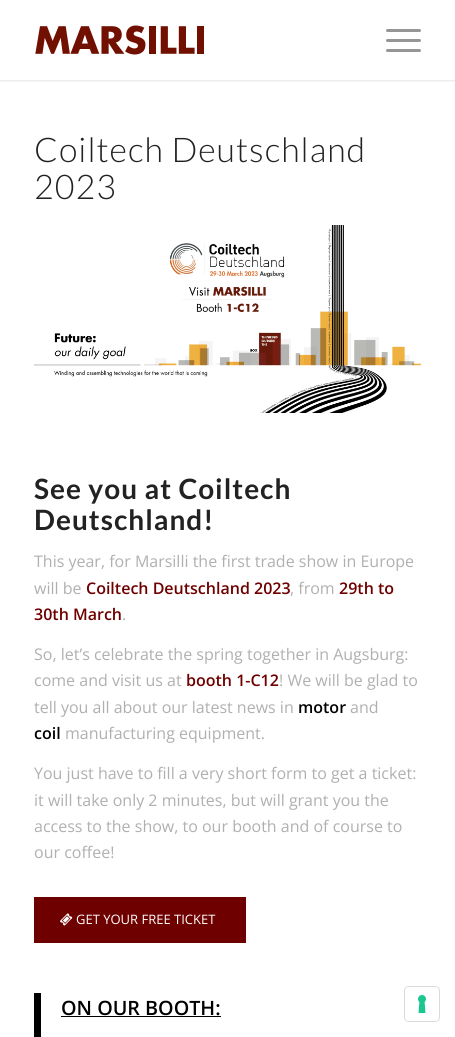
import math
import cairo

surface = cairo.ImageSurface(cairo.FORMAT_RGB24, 455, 1037)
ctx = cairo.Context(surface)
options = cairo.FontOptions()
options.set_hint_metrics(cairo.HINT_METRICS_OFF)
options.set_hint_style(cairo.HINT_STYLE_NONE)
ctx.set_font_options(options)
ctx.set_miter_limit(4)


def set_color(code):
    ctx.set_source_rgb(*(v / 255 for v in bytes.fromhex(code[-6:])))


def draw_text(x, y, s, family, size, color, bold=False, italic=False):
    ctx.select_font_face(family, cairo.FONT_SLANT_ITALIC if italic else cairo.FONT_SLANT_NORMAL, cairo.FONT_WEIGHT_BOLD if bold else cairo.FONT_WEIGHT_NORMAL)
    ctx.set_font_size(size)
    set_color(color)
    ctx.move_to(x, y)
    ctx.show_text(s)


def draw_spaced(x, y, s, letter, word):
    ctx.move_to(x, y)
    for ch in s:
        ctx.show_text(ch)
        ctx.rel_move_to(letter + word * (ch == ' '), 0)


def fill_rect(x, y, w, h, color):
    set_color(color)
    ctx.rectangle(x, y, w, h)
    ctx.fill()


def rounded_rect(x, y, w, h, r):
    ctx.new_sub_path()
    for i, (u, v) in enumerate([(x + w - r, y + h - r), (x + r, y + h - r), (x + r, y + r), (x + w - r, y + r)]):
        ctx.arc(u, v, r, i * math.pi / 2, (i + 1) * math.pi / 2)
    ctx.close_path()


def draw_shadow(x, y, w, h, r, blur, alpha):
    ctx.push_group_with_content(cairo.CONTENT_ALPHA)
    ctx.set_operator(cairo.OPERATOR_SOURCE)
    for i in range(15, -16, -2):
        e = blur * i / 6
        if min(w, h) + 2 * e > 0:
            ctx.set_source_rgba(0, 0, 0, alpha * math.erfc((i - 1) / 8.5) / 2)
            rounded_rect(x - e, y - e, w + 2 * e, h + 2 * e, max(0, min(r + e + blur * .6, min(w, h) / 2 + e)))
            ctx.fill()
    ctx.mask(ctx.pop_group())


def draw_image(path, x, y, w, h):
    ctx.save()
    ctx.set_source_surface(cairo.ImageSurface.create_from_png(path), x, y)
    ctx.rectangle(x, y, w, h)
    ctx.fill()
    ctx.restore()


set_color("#ffffff")
ctx.paint()
ctx.save()
ctx.rectangle(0, 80, 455, 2)
ctx.clip()
set_color("#000000")
draw_shadow(-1, -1, 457, 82, 0, 1, 0.1)
ctx.restore()
draw_image("assets/img1.png", 35, 25, 169, 30)
set_color("#969696")
rounded_rect(386, 39, 35, 3, 1.5)
ctx.fill()
rounded_rect(386, 29, 35, 3, 1.5)
ctx.fill()
rounded_rect(386, 49, 35, 3, 1.5)
ctx.fill()
ctx.select_font_face("Lato Light")
ctx.set_font_size(34)
set_color("#222222")
draw_spaced(34, 162, "Coiltech Deutschland", 1, 0)
draw_spaced(34, 199, "2023", 1, 0)
draw_image("assets/img2.png", 34, 225, 387, 188)
ctx.select_font_face("Lato", cairo.FONT_SLANT_NORMAL, cairo.FONT_WEIGHT_BOLD)
ctx.set_font_size(28)
draw_spaced(34, 499, "See you at Coiltech", 1, 0)
draw_spaced(34, 530, "Deutschland!", 1, 0)
draw_text(34, 567, "This year, for Marsilli the first trade show in Europe", "Open Sans", 16, "#b0b0b0")
draw_text(34, 594, "will be", "Open Sans", 16, "#b0b0b0")
draw_text(86, 594, "Coiltech Deutschland 2023", "Open Sans SemiBold", 16, "#6f0000")
draw_text(290, 594, ", from", "Open Sans", 16, "#b0b0b0")
draw_text(339, 594, "29th to", "Open Sans SemiBold", 16, "#6f0000")
draw_text(34, 620, "30th March", "Open Sans SemiBold", 16, "#6f0000")
draw_text(122, 620, ".", "Open Sans", 16, "#b0b0b0")
draw_text(34, 660, "So, let’s celebrate the spring together in Augsburg:", "Open Sans", 16, "#b0b0b0")
draw_text(34, 686, "come and visit us at", "Open Sans", 16, "#b0b0b0")
draw_text(186, 686, "booth 1-C12", "Open Sans SemiBold", 16, "#6f0000")
draw_text(279, 686, "! We will be glad to", "Open Sans", 16, "#b0b0b0")
draw_text(34, 713, "tell you all about our latest news in", "Open Sans", 16, "#b0b0b0")
draw_text(298, 713, "motor", "Open Sans SemiBold", 16, "#000000")
draw_text(350, 713, "and", "Open Sans", 16, "#b0b0b0")
draw_text(34, 739, "coil", "Open Sans SemiBold", 16, "#000000")
draw_text(65, 739, "manufacturing equipment.", "Open Sans", 16, "#b0b0b0")
draw_text(34, 779, "You just have to fill a very short form to get a ticket:", "Open Sans", 16, "#b0b0b0")
draw_text(34, 806, "it will take only 2 minutes, but will grant you the", "Open Sans", 16, "#b0b0b0")
draw_text(34, 832, "access to the show, to our booth and of course to", "Open Sans", 16, "#b0b0b0")
draw_text(34, 858, "our coffee!", "Open Sans", 16, "#b0b0b0")
fill_rect(34, 897, 212, 46, "#6f0000")
draw_image("assets/img3.png", 60, 913, 13, 13)
draw_text(76, 924, "GET YOUR FREE TICKET", "Open Sans", 13, "#ffffff")
fill_rect(34, 993, 7, 44, "#000000")
draw_text(61, 1015, "ON OUR BOOTH:", "Open Sans SemiBold", 19.75, "#000000")
fill_rect(61, 1016, 160, 1, "#000000")
rounded_rect(404.5, 986.5, 35, 35, 4.5)
set_color("#d9d9d9")
ctx.set_line_width(1)
ctx.stroke()
set_color("#ffffff")
rounded_rect(405, 987, 34, 34, 4)
ctx.fill()
draw_image("assets/img4.png", 418, 995, 8, 18)
surface.write_to_png("output.png")
